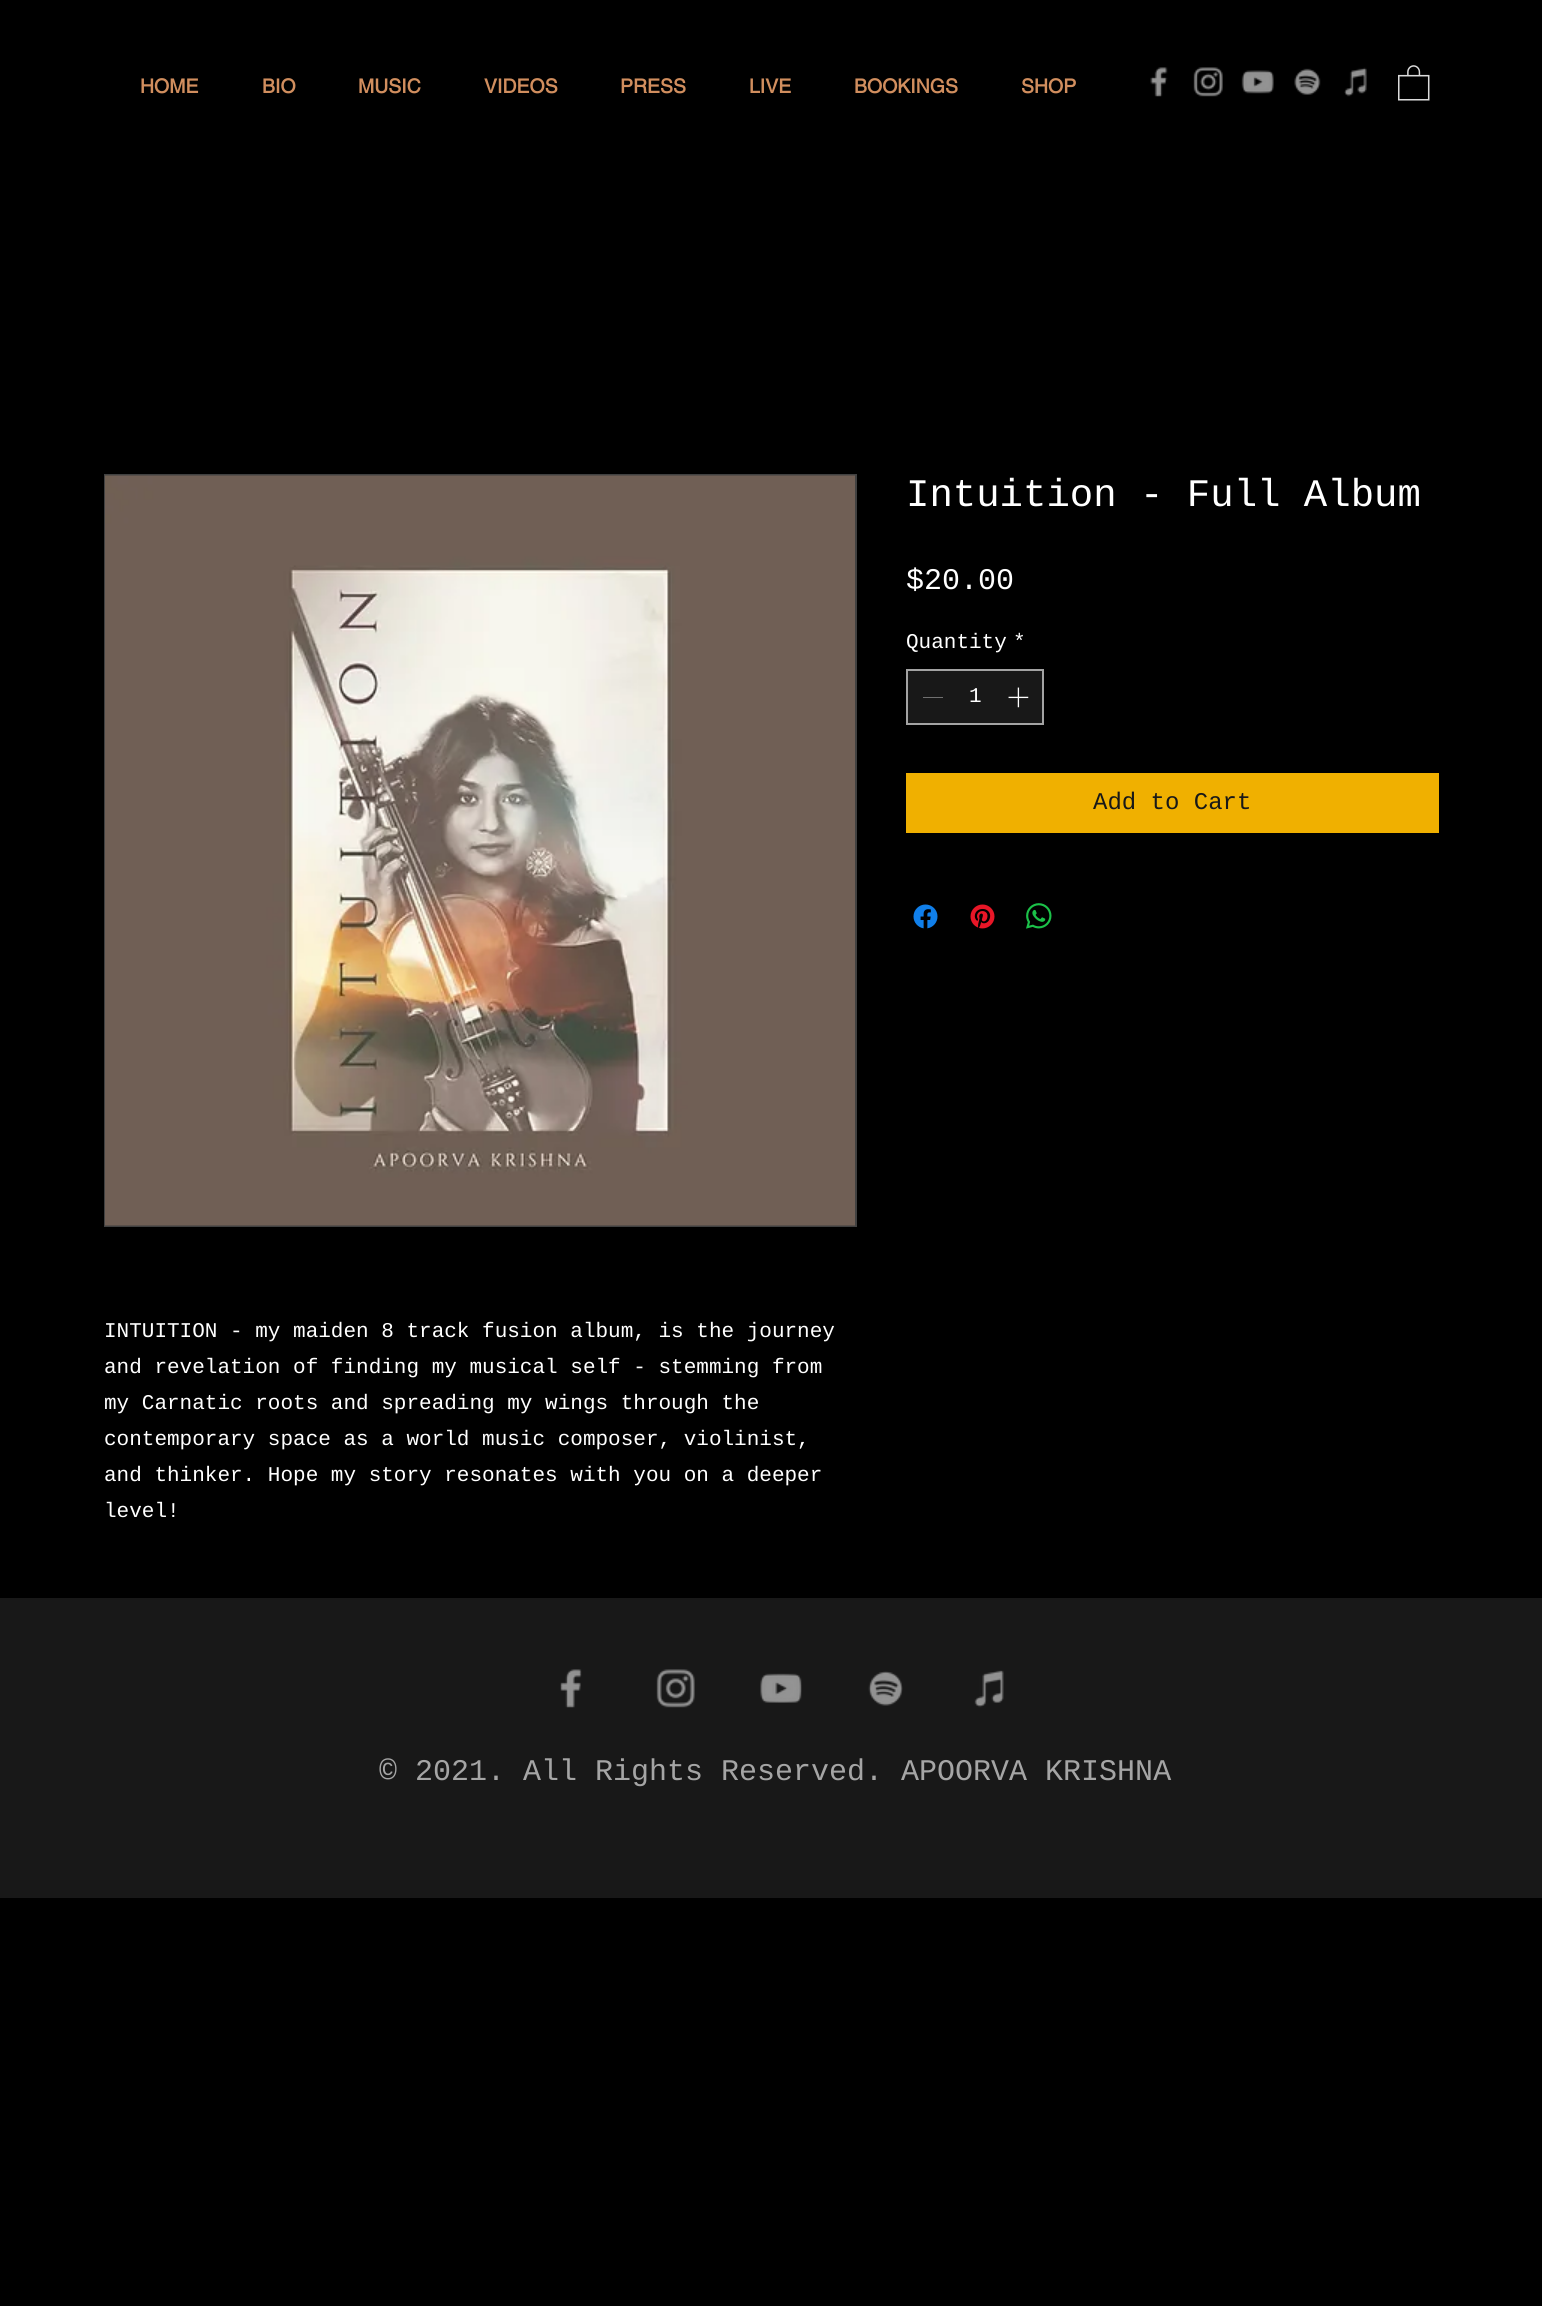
import math
import cairo

surface = cairo.ImageSurface(cairo.FORMAT_RGB24, 1542, 2306)
ctx = cairo.Context(surface)
options = cairo.FontOptions()
options.set_hint_metrics(cairo.HINT_METRICS_OFF)
options.set_hint_style(cairo.HINT_STYLE_NONE)
ctx.set_font_options(options)
ctx.set_miter_limit(4)


def set_color(code):
    ctx.set_source_rgb(*(v / 255 for v in bytes.fromhex(code[-6:])))


def draw_text(x, y, s, family, size, color, bold=False, italic=False):
    ctx.select_font_face(family, cairo.FONT_SLANT_ITALIC if italic else cairo.FONT_SLANT_NORMAL, cairo.FONT_WEIGHT_BOLD if bold else cairo.FONT_WEIGHT_NORMAL)
    ctx.set_font_size(size)
    set_color(color)
    ctx.move_to(x, y)
    ctx.show_text(s)


def fill_rect(x, y, w, h, color):
    set_color(color)
    ctx.rectangle(x, y, w, h)
    ctx.fill()


def draw_image(path, x, y, w, h):
    ctx.save()
    ctx.set_source_surface(cairo.ImageSurface.create_from_png(path), x, y)
    ctx.rectangle(x, y, w, h)
    ctx.fill()
    ctx.restore()


set_color("#000000")
ctx.paint()
draw_text(140, 93, "HOME", "helvetica", 19.5, "#d18e5e", bold=True)
draw_text(262, 93, "BIO", "helvetica", 19.5, "#d18e5e", bold=True)
draw_text(358, 93, "MUSIC", "helvetica", 19.5, "#d18e5e", bold=True)
draw_text(484, 93, "VIDEOS", "helvetica", 19.5, "#d18e5e", bold=True)
draw_text(620, 93, "PRESS", "helvetica", 19.5, "#d18e5e", bold=True)
draw_text(749, 93, "LIVE", "helvetica", 19.5, "#d18e5e", bold=True)
draw_text(854, 93, "BOOKINGS", "helvetica", 19.5, "#d18e5e", bold=True)
draw_text(1021, 93, "SHOP", "helvetica", 19.5, "#d18e5e", bold=True)
draw_image("assets/img1.png", 1150, 67, 18, 30)
draw_image("assets/img2.png", 1193, 67, 30, 30)
draw_image("assets/img3.png", 1241, 70, 33, 24)
draw_image("assets/img4.png", 1294, 68, 27, 27)
draw_image("assets/img5.png", 1344, 67, 23, 30)
draw_image("assets/img6.png", 1398, 65, 32, 36)
draw_text(906, 506, "Intuition - Full Album", "Liberation Mono", 39, "#ffffff")
draw_text(906, 589, "$20.00", "Liberation Mono", 30, "#ffffff")
draw_text(906, 648, "Quantity", "Liberation Mono", 21, "#ffffff")
draw_text(1013, 648, "*", "Liberation Mono", 21, "#ffffff")
set_color("#181818")
ctx.rectangle(907, 670, 136, 54)
ctx.fill_preserve()
set_color("#a3a3a3")
ctx.stroke()
fill_rect(923, 697, 20, 1, "#707070")
draw_text(969, 702, "1", "Liberation Mono", 21, "#ffffff")
draw_image("assets/img7.png", 1008, 687, 21, 21)
fill_rect(906, 773, 533, 60, "#f0b000")
draw_text(1093, 809, "Add to Cart", "Liberation Mono", 24, "#181818")
draw_image("assets/img8.png", 913, 904, 25, 25)
draw_image("assets/img9.png", 970, 904, 25, 25)
draw_image("assets/img10.png", 1026, 903, 26, 26)
ctx.rectangle(105, 475, 751, 751)
set_color("#414141")
ctx.stroke()
draw_image("assets/img11.png", 105, 475, 750, 751)
draw_text(104, 1337, "INTUITION - my maiden 8 track fusion album, is the journey", "Liberation Mono", 21, "#ffffff")
draw_text(104, 1373, "and revelation of finding my musical self - stemming from", "Liberation Mono", 21, "#ffffff")
draw_text(104, 1409, "my Carnatic roots and spreading my wings through the", "Liberation Mono", 21, "#ffffff")
draw_text(104, 1445, "contemporary space as a world music composer, violinist,", "Liberation Mono", 21, "#ffffff")
draw_text(104, 1481, "and thinker. Hope my story resonates with you on a deeper", "Liberation Mono", 21, "#ffffff")
draw_text(104, 1517, "level!", "Liberation Mono", 21, "#ffffff")
fill_rect(0, 1598, 1542, 300, "#181818")
draw_image("assets/img12.png", 560, 1669, 22, 39)
draw_image("assets/img13.png", 656, 1669, 39, 39)
draw_image("assets/img14.png", 760, 1673, 42, 30)
draw_image("assets/img15.png", 868, 1671, 35, 35)
draw_image("assets/img16.png", 974, 1670, 30, 38)
draw_text(379, 1780, "© 2021. All Rights Reserved. APOORVA KRISHNA", "Liberation Mono", 30, "#a5a5a5")
surface.write_to_png("output.png")
